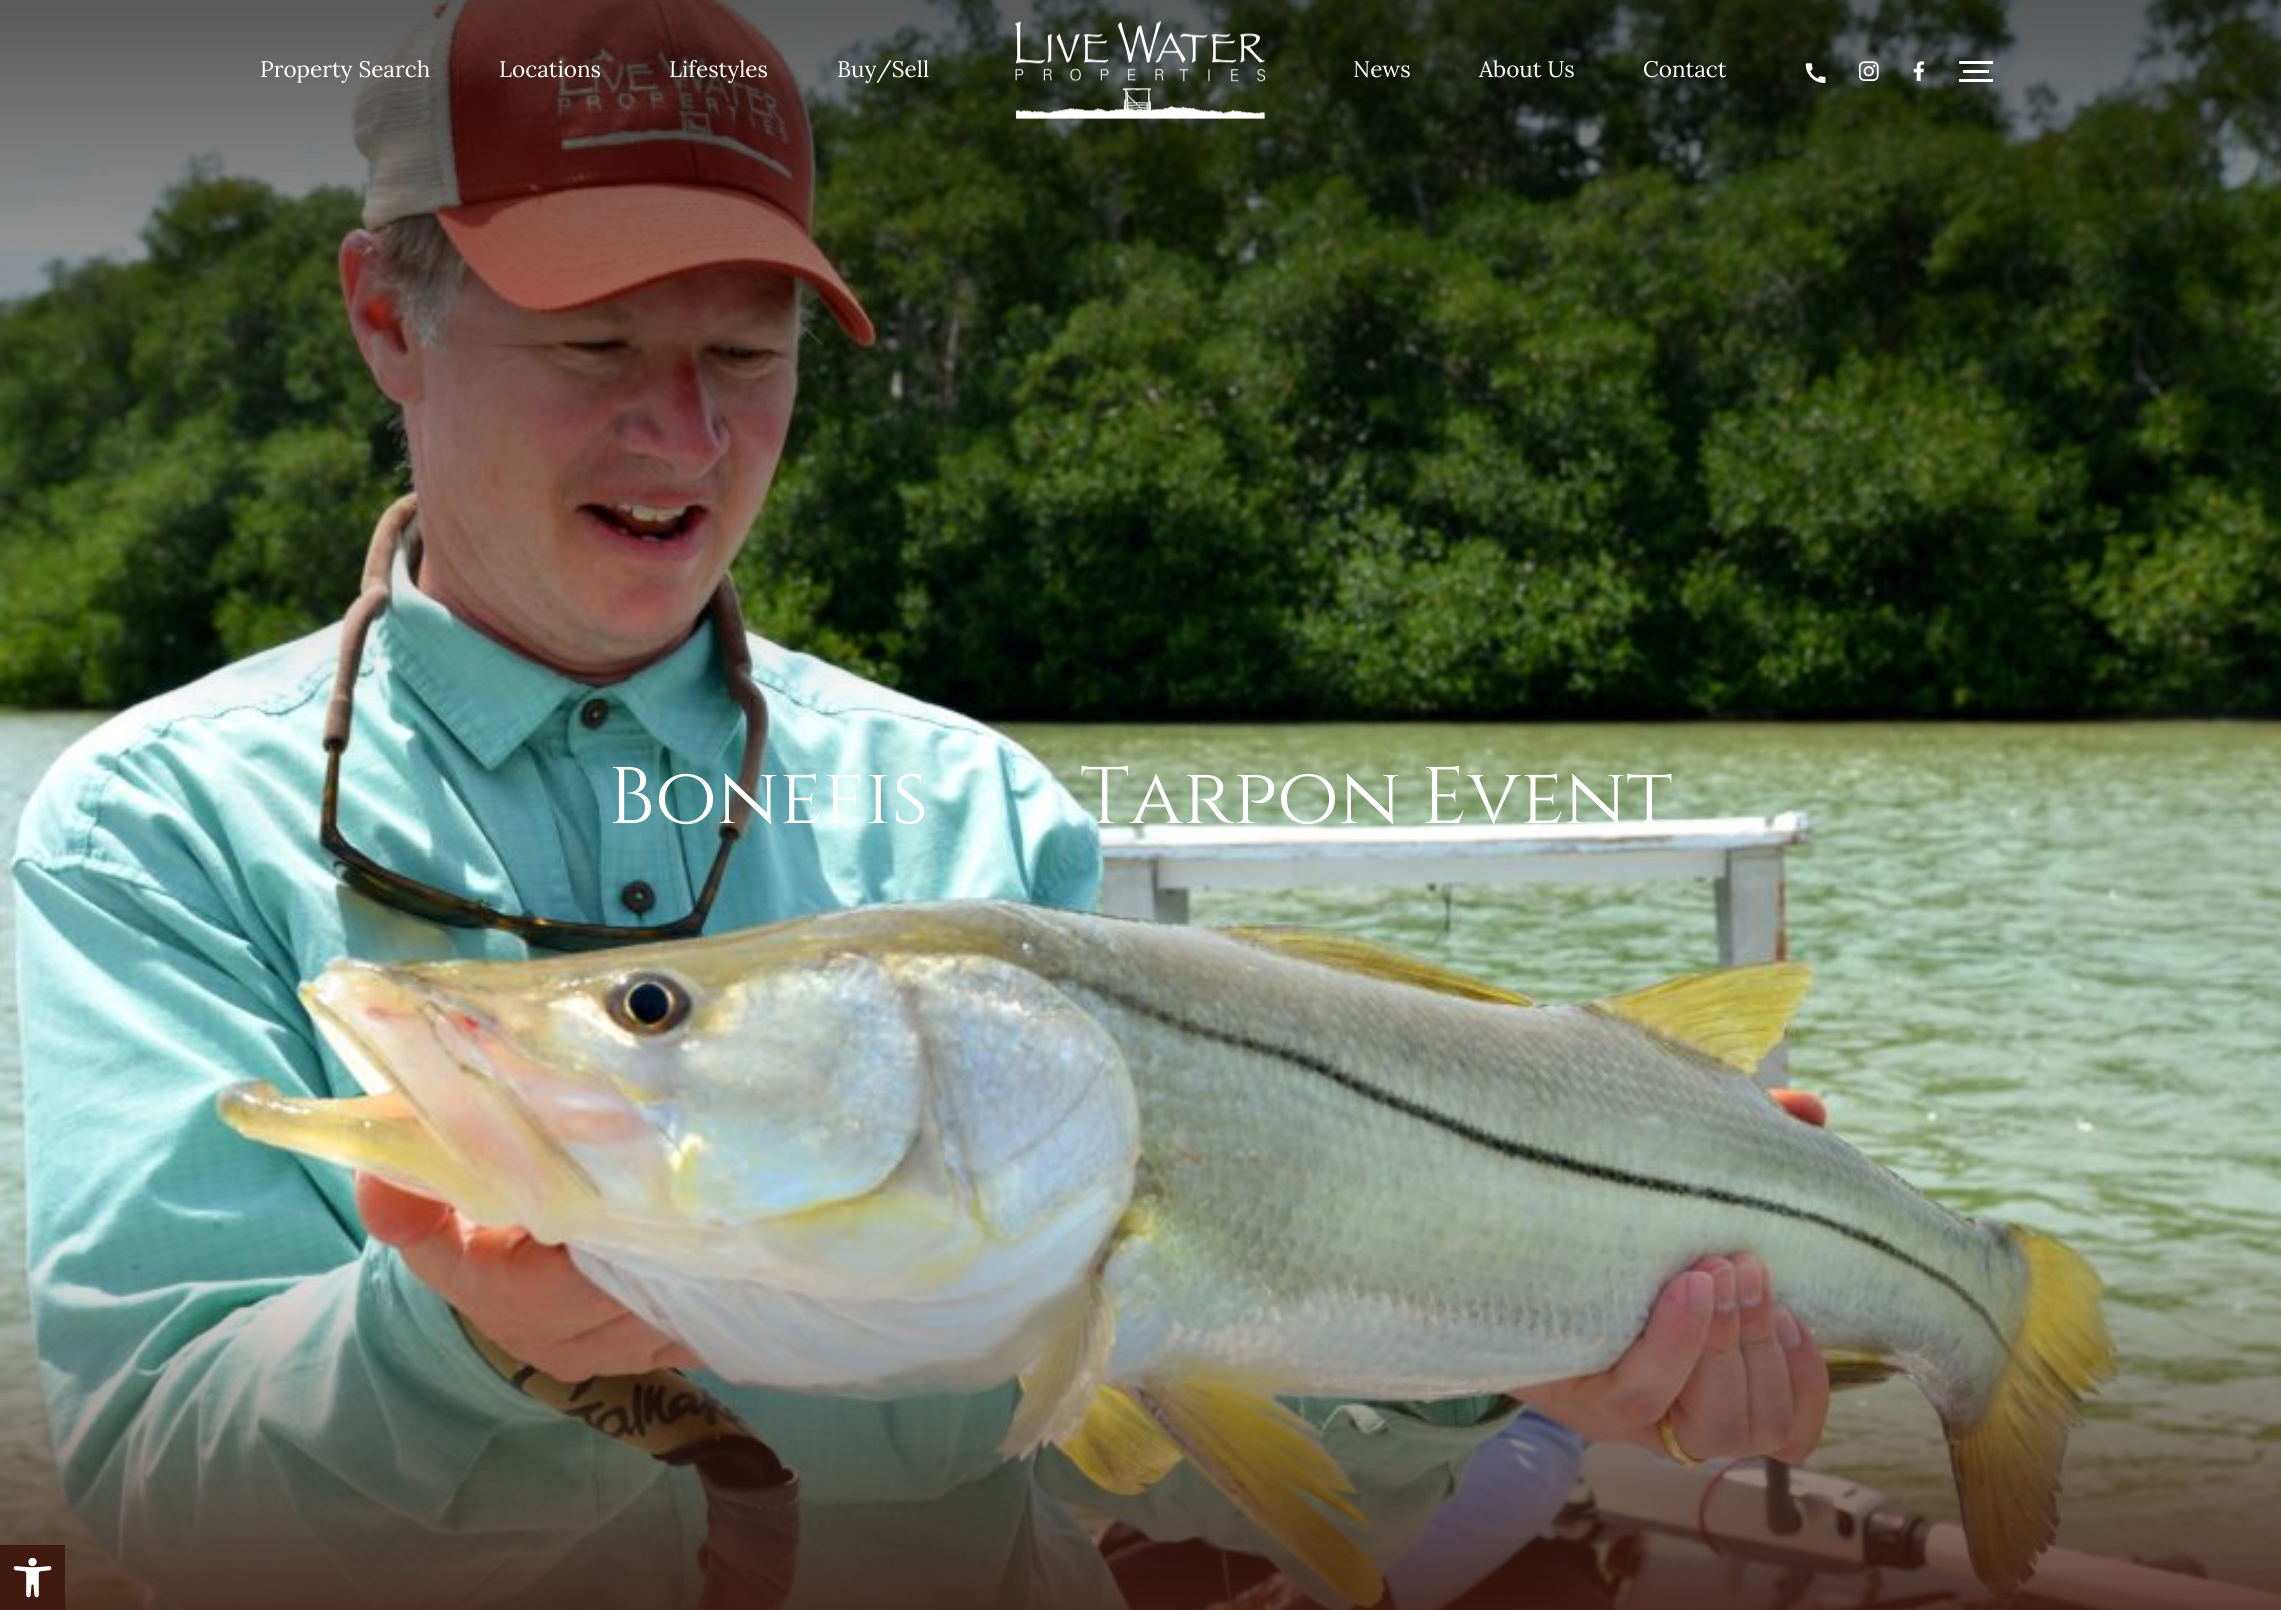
import math
import cairo

surface = cairo.ImageSurface(cairo.FORMAT_RGB24, 2281, 1610)
ctx = cairo.Context(surface)
options = cairo.FontOptions()
options.set_hint_metrics(cairo.HINT_METRICS_OFF)
options.set_hint_style(cairo.HINT_STYLE_NONE)
ctx.set_font_options(options)
ctx.set_miter_limit(4)


def set_color(code):
    ctx.set_source_rgb(*(v / 255 for v in bytes.fromhex(code[-6:])))


def draw_text(x, y, s, family, size, color, bold=False, italic=False):
    ctx.select_font_face(family, cairo.FONT_SLANT_ITALIC if italic else cairo.FONT_SLANT_NORMAL, cairo.FONT_WEIGHT_BOLD if bold else cairo.FONT_WEIGHT_NORMAL)
    ctx.set_font_size(size)
    set_color(color)
    ctx.move_to(x, y)
    ctx.show_text(s)


def fill_rect(x, y, w, h, color):
    set_color(color)
    ctx.rectangle(x, y, w, h)
    ctx.fill()


def draw_image(path, x, y, w, h):
    ctx.save()
    ctx.set_source_surface(cairo.ImageSurface.create_from_png(path), x, y)
    ctx.rectangle(x, y, w, h)
    ctx.fill()
    ctx.restore()


set_color("#ffffff")
ctx.paint()
draw_image("assets/img5.png", 0, 0, 2281, 1610)
draw_text(260, 77, "Property Search", "Lora", 22.5, "#ffffff")
draw_text(499, 77, "Locations", "Lora", 22.5, "#ffffff")
draw_text(669, 77, "Lifestyles", "Lora", 22.5, "#ffffff")
draw_text(837, 77, "Buy/Sell", "Lora", 22.5, "#ffffff")
draw_image("assets/img1.png", 1015, 21, 250, 98)
draw_text(1353, 77, "News", "Lora", 22.5, "#ffffff")
draw_text(1479, 77, "About Us", "Lora", 22.5, "#ffffff")
draw_text(1643, 77, "Contact", "Lora", 22.5, "#ffffff")
draw_image("assets/img2.png", 1805, 63, 21, 20)
draw_image("assets/img3.png", 1859, 61, 20, 20)
draw_image("assets/img4.png", 1913, 61, 12, 20)
fill_rect(1959, 61, 34, 3, "#ffffff")
fill_rect(1963, 70, 26, 3, "#ffffff")
fill_rect(1959, 79, 34, 3, "#ffffff")
draw_text(608, 823, "Bonefis", "Cinzel", 80, "#ffffff")
draw_text(1080, 823, "Tarpon Event", "Cinzel", 80, "#ffffff")
fill_rect(0, 1545, 65, 65, "#401a0e")
draw_image("assets/img6.png", 13, 1558, 39, 40)
surface.write_to_png("output.png")
